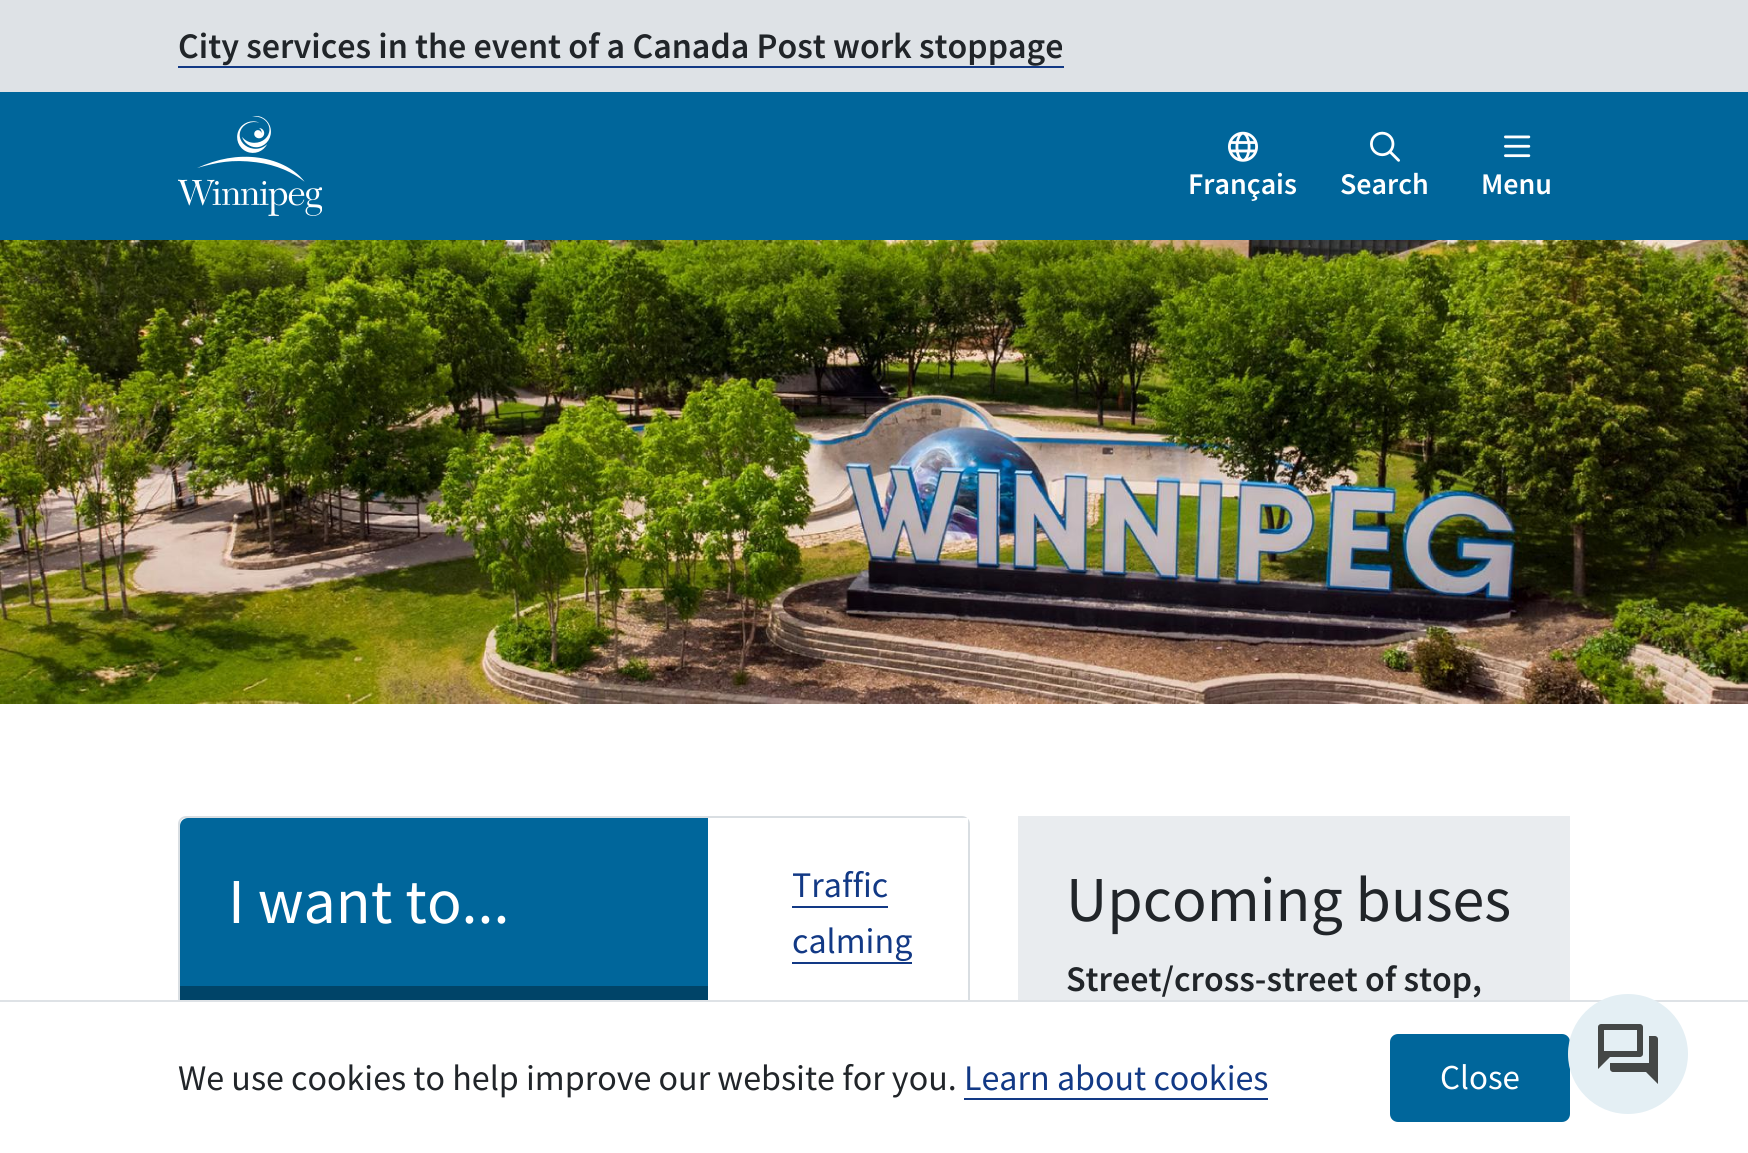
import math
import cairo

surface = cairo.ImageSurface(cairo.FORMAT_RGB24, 1748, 1153)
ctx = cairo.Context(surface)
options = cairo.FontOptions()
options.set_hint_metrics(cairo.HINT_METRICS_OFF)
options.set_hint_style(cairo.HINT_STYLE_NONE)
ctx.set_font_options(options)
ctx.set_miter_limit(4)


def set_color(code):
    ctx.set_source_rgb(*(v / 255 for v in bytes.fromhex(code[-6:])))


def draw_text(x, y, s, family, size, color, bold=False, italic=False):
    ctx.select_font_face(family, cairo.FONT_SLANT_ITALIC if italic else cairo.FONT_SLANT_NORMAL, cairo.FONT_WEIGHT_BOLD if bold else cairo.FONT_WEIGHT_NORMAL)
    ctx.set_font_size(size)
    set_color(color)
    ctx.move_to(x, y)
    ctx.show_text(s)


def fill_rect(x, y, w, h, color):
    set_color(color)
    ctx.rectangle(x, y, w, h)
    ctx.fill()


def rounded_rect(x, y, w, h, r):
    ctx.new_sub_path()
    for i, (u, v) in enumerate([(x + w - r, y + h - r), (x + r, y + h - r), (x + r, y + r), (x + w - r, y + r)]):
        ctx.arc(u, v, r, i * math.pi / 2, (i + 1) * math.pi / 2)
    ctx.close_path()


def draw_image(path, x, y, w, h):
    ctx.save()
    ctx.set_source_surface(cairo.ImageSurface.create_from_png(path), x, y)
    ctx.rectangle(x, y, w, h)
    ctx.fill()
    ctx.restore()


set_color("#ffffff")
ctx.paint()
fill_rect(0, 0, 1748, 92, "#dee2e6")
draw_text(178, 58, "City services in the event of a Canada Post work stoppage", "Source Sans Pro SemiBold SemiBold", 36, "#212529")
fill_rect(178, 66, 886, 2, "#123985")
fill_rect(0, 92, 1748, 148, "#00669b")
draw_image("assets/img1.png", 178, 116, 144, 100)
draw_image("assets/img2.png", 1228, 131, 30, 31)
draw_text(1188, 194, "Français", "Source Sans Pro SemiBold SemiBold", 30, "#ffffff")
draw_image("assets/img3.png", 1370, 131, 30, 31)
draw_text(1340, 194, "Search", "Source Sans Pro SemiBold SemiBold", 30, "#ffffff")
draw_image("assets/img4.png", 1504, 135, 27, 23)
draw_text(1481, 194, "Menu", "Source Sans Pro SemiBold SemiBold", 30, "#ffffff")
draw_image("assets/img5.png", 0, 240, 1748, 464)
rounded_rect(179, 817, 790, 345, 7)
set_color("#d9dee2")
ctx.stroke()
set_color("#00669b")
ctx.new_path()
ctx.move_to(188, 818)
ctx.line_to(708, 818)
ctx.line_to(708, 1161)
ctx.line_to(188, 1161)
ctx.curve_to(183.5, 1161, 180, 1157.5, 180, 1153)
ctx.line_to(180, 826)
ctx.curve_to(180, 821.5, 183.5, 818, 188, 818)
ctx.close_path()
ctx.fill()
draw_text(228, 923, "I want to...", "Source Sans Pro", 64, "#ffffff")
fill_rect(963, 818, 5, 5, "#ffffff")
draw_text(792, 897, "Traffic", "Source Sans Pro", 36, "#123985")
fill_rect(792, 906, 96, 2, "#123985")
draw_text(792, 953, "calming", "Source Sans Pro", 36, "#123985")
fill_rect(792, 962, 120, 2, "#123985")
fill_rect(180, 986, 528, 14, "#004468")
fill_rect(1018, 816, 552, 184, "#e9ecef")
draw_text(1066, 921, "Upcoming buses", "Source Sans Pro", 64, "#212529")
draw_text(1066, 991, "Street/cross-street of stop,", "Source Sans Pro SemiBold SemiBold", 36, "#212529")
fill_rect(0, 1000, 1748, 2, "#dee2e6")
set_color("#00669b")
rounded_rect(1391, 1035, 178, 86, 7)
ctx.fill_preserve()
ctx.stroke()
set_color("#e4eff4")
ctx.arc(1628, 1054, 60, 0, 2 * math.pi)
ctx.fill()
draw_image("assets/img6.png", 1598, 1024, 60, 60)
fill_rect(178, 1002, 792, 151, "#ffffff")
draw_text(178, 1090, "We use cookies to help improve our website for you.", "Source Sans Pro", 36, "#212529")
draw_text(964, 1090, "Learn about cookies", "Source Sans Pro", 36, "#123985")
fill_rect(964, 1098, 304, 2, "#123985")
draw_text(1440, 1089, "Close", "Source Sans Pro", 35, "#ffffff")
surface.write_to_png("output.png")
